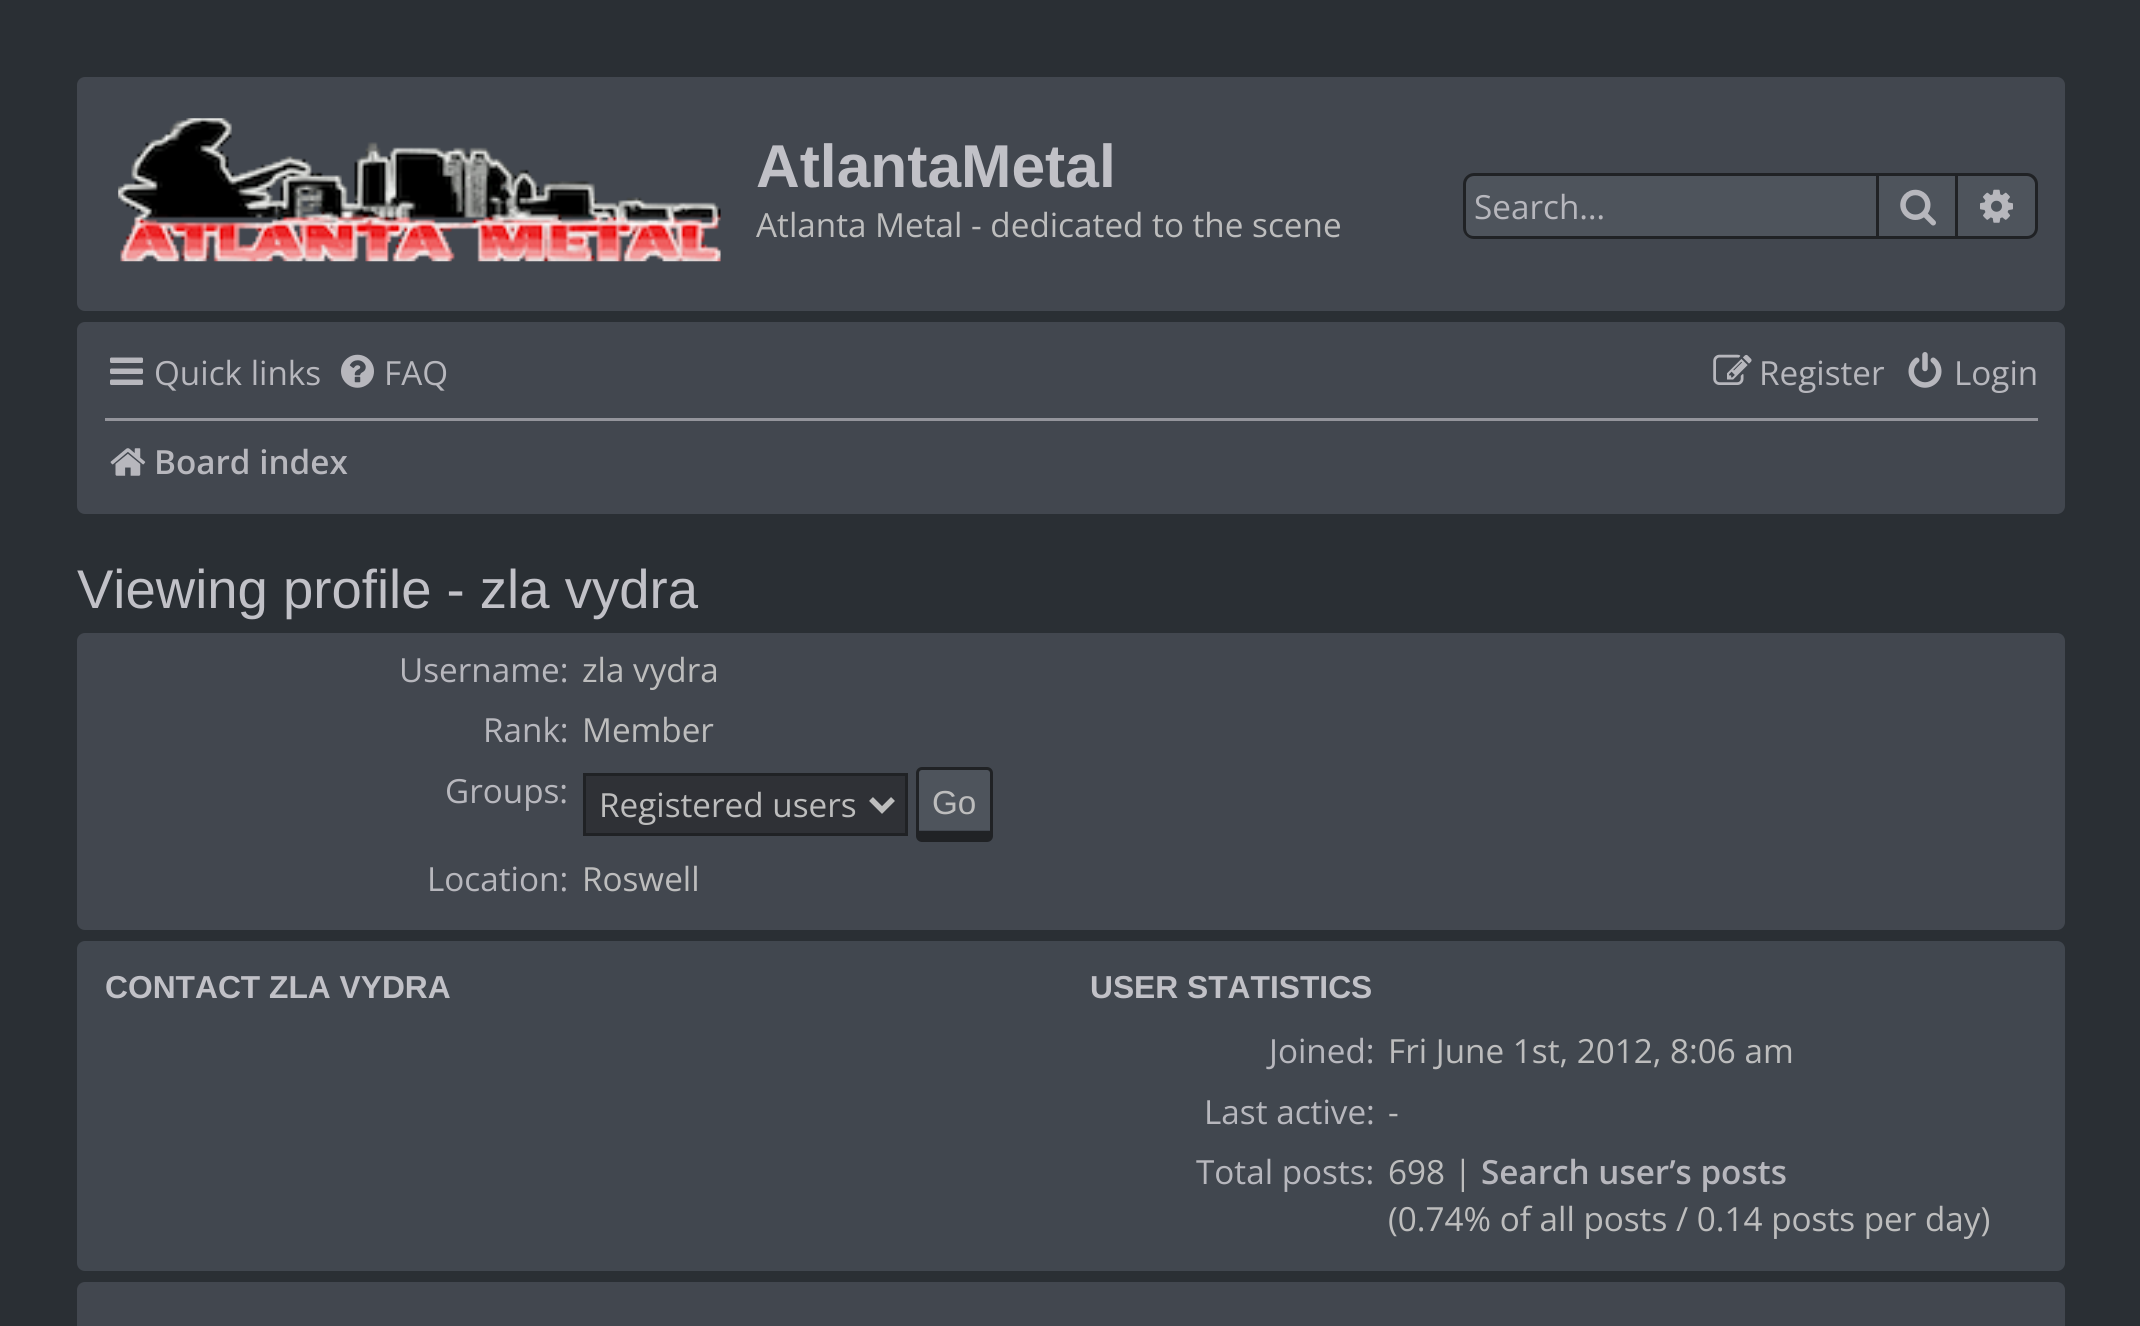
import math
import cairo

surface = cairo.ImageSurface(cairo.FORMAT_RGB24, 2140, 1326)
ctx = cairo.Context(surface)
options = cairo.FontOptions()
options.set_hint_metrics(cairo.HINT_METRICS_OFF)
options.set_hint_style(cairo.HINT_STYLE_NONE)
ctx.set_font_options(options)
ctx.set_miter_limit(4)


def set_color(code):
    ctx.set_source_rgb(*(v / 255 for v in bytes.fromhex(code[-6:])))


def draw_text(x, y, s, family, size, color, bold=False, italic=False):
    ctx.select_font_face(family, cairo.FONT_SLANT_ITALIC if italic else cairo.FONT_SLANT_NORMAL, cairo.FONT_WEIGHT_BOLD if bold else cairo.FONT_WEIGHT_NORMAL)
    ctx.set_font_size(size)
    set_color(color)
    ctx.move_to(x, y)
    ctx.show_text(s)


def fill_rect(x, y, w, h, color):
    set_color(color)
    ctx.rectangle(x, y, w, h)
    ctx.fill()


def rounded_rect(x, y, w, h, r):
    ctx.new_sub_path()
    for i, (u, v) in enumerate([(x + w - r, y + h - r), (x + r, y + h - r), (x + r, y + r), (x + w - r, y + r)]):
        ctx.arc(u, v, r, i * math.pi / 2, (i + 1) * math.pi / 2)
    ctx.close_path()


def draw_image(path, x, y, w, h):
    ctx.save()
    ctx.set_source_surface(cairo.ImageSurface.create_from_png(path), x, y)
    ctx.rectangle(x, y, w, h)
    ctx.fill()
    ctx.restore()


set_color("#2a2f34")
ctx.paint()
set_color("#42474f")
rounded_rect(77, 77, 1988, 234, 8)
ctx.fill()
draw_image("assets/img1.png", 118, 118, 603, 144)
draw_text(756, 187, "AtlantaMetal", "Liberation Sans", 60.5, "#c1c1c7", bold=True)
draw_text(756, 237, "Atlanta Metal - dedicated to the scene", "Open Sans", 33.25, "#bdbdbd")
set_color("#4e545c")
ctx.new_path()
ctx.move_to(1474, 176)
ctx.line_to(1876, 176)
ctx.line_to(1876, 237)
ctx.line_to(1474, 237)
ctx.curve_to(1469.5, 237, 1466, 233.5, 1466, 229)
ctx.line_to(1466, 184)
ctx.curve_to(1466, 179.5, 1469.5, 176, 1474, 176)
ctx.close_path()
ctx.fill()
set_color("#202225")
ctx.set_fill_rule(cairo.FILL_RULE_EVEN_ODD)
ctx.new_path()
ctx.move_to(1474, 173)
ctx.line_to(1876, 173)
ctx.line_to(1876, 239)
ctx.line_to(1474, 239)
ctx.curve_to(1468, 239, 1463, 234, 1463, 228)
ctx.line_to(1463, 184)
ctx.curve_to(1463, 178, 1468, 173, 1474, 173)
ctx.close_path()
ctx.move_to(1474, 176)
ctx.line_to(1876, 176)
ctx.line_to(1876, 236)
ctx.line_to(1474, 236)
ctx.curve_to(1469, 236, 1466, 233, 1466, 228)
ctx.line_to(1466, 184)
ctx.curve_to(1466, 180, 1469, 176, 1474, 176)
ctx.close_path()
ctx.fill()
draw_text(1474, 219, "Search…", "Open Sans", 33.25, "#b7b7bd")
set_color("#4e545c")
ctx.rectangle(1877.5, 174.5, 79, 63)
ctx.fill_preserve()
set_color("#202225")
ctx.set_line_width(3)
ctx.stroke()
draw_image("assets/img2.png", 1900, 189, 36, 37)
set_color("#4e545c")
ctx.new_path()
ctx.move_to(1958, 176)
ctx.line_to(2027, 176)
ctx.curve_to(2031.5, 176, 2035, 179.5, 2035, 184)
ctx.line_to(2035, 229)
ctx.curve_to(2035, 233.5, 2031.5, 237, 2027, 237)
ctx.line_to(1958, 237)
ctx.close_path()
ctx.fill()
set_color("#202225")
ctx.new_path()
ctx.move_to(1958, 173)
ctx.line_to(2027, 173)
ctx.curve_to(2033, 173, 2038, 178, 2038, 184)
ctx.line_to(2038, 228)
ctx.curve_to(2038, 234, 2033, 239, 2027, 239)
ctx.line_to(1958, 239)
ctx.close_path()
ctx.move_to(1958, 176)
ctx.line_to(2027, 176)
ctx.curve_to(2031, 176, 2035, 180, 2035, 184)
ctx.line_to(2035, 228)
ctx.curve_to(2035, 233, 2031, 236, 2027, 236)
ctx.line_to(1958, 236)
ctx.close_path()
ctx.fill()
draw_image("assets/img3.png", 1980, 189, 33, 34)
set_color("#42474f")
rounded_rect(77, 322, 1988, 192, 8)
ctx.fill()
draw_image("assets/img4.png", 110, 357, 33, 28)
draw_text(154, 385, "Quick links", "Open Sans", 33.25, "#b7b7bd")
draw_image("assets/img5.png", 341, 354, 33, 34)
draw_text(384, 385, "FAQ", "Open Sans", 33.25, "#b7b7bd")
draw_image("assets/img6.png", 1713, 354, 39, 31)
draw_text(1759, 385, "Register", "Open Sans", 33.25, "#b7b7bd")
draw_image("assets/img7.png", 1908, 352, 34, 36)
draw_text(1954, 385, "Login", "Open Sans", 33.25, "#b7b7bd")
fill_rect(105, 418, 1933, 3, "#94959c")
draw_image("assets/img8.png", 110, 448, 36, 28)
draw_text(154, 474, "Board index", "Open Sans SemiBold", 33.25, "#b7b7bd")
draw_text(77, 608, "Viewing profile - zla vydra", "Liberation Sans", 54.5, "#c1c1c7")
set_color("#42474f")
rounded_rect(77, 633, 1988, 297, 8)
ctx.fill()
draw_text(399, 682, "Username:", "Open Sans", 33.25, "#b7b7bd")
draw_text(582, 682, "zla vydra", "Open Sans", 33.25, "#bdbdbd")
draw_text(483, 742, "Rank:", "Open Sans", 33.25, "#b7b7bd")
draw_text(582, 742, "Member", "Open Sans", 33.25, "#bdbdbd")
draw_text(445, 803, "Groups:", "Open Sans", 33.25, "#b7b7bd")
set_color("#2f3136")
ctx.rectangle(584.5, 774.5, 322, 60)
ctx.fill_preserve()
set_color("#202225")
ctx.stroke()
ctx.new_path()
ctx.move_to(871, 799)
ctx.line_to(882, 810)
ctx.line_to(893, 799)
set_color("#bdbdbd")
ctx.set_line_width(5.5)
ctx.stroke()
draw_text(599, 817, "Registered users", "Open Sans", 33.25, "#bdbdbd")
set_color("#4e545c")
ctx.set_fill_rule(cairo.FILL_RULE_WINDING)
ctx.new_path()
ctx.move_to(921, 770)
ctx.line_to(987, 770)
ctx.curve_to(989, 770, 990, 771, 990, 773)
ctx.line_to(990, 830)
ctx.line_to(918, 830)
ctx.line_to(918, 773)
ctx.curve_to(918, 771, 920, 770, 921, 770)
ctx.close_path()
ctx.fill()
rounded_rect(917.5, 768.5, 74, 72, 4.5)
set_color("#202225")
ctx.set_line_width(3)
ctx.stroke()
fill_rect(919, 831, 71, 8, "#202225")
draw_text(932, 814, "Go", "Liberation Sans", 33.25, "#bdbdbd")
draw_text(427, 891, "Location:", "Open Sans", 33.25, "#b7b7bd")
draw_text(582, 891, "Roswell", "Open Sans", 33.25, "#bdbdbd")
set_color("#41474f")
rounded_rect(77, 941, 1988, 330, 8)
ctx.fill()
draw_text(105, 998, "CONTACT ZLA VYDRA", "Liberation Sans", 31.75, "#c1c1c7", bold=True)
draw_text(1090, 998, "USER STATISTICS", "Liberation Sans", 31.75, "#c1c1c7", bold=True)
draw_text(1269, 1063, "Joined:", "Open Sans", 33.25, "#b7b7bd")
draw_text(1388, 1063, "Fri June 1st, 2012, 8:06 am", "Open Sans", 33.25, "#bdbdbd")
draw_text(1204, 1124, "Last active:", "Open Sans", 33.25, "#b7b7bd")
draw_text(1388, 1124, "-", "Open Sans", 33.25, "#bdbdbd")
draw_text(1196, 1184, "Total posts:", "Open Sans", 33.25, "#b7b7bd")
draw_text(1388, 1184, "698 |", "Open Sans", 33.25, "#bdbdbd")
draw_text(1481, 1184, "Search user’s posts", "Open Sans SemiBold", 33.25, "#b7b7bd")
draw_text(1388, 1231, "(0.74% of all posts / 0.14 posts per day)", "Open Sans", 33.25, "#bdbdbd")
set_color("#42474f")
rounded_rect(77, 1282, 1988, 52, 8)
ctx.fill()
surface.write_to_png("output.png")
